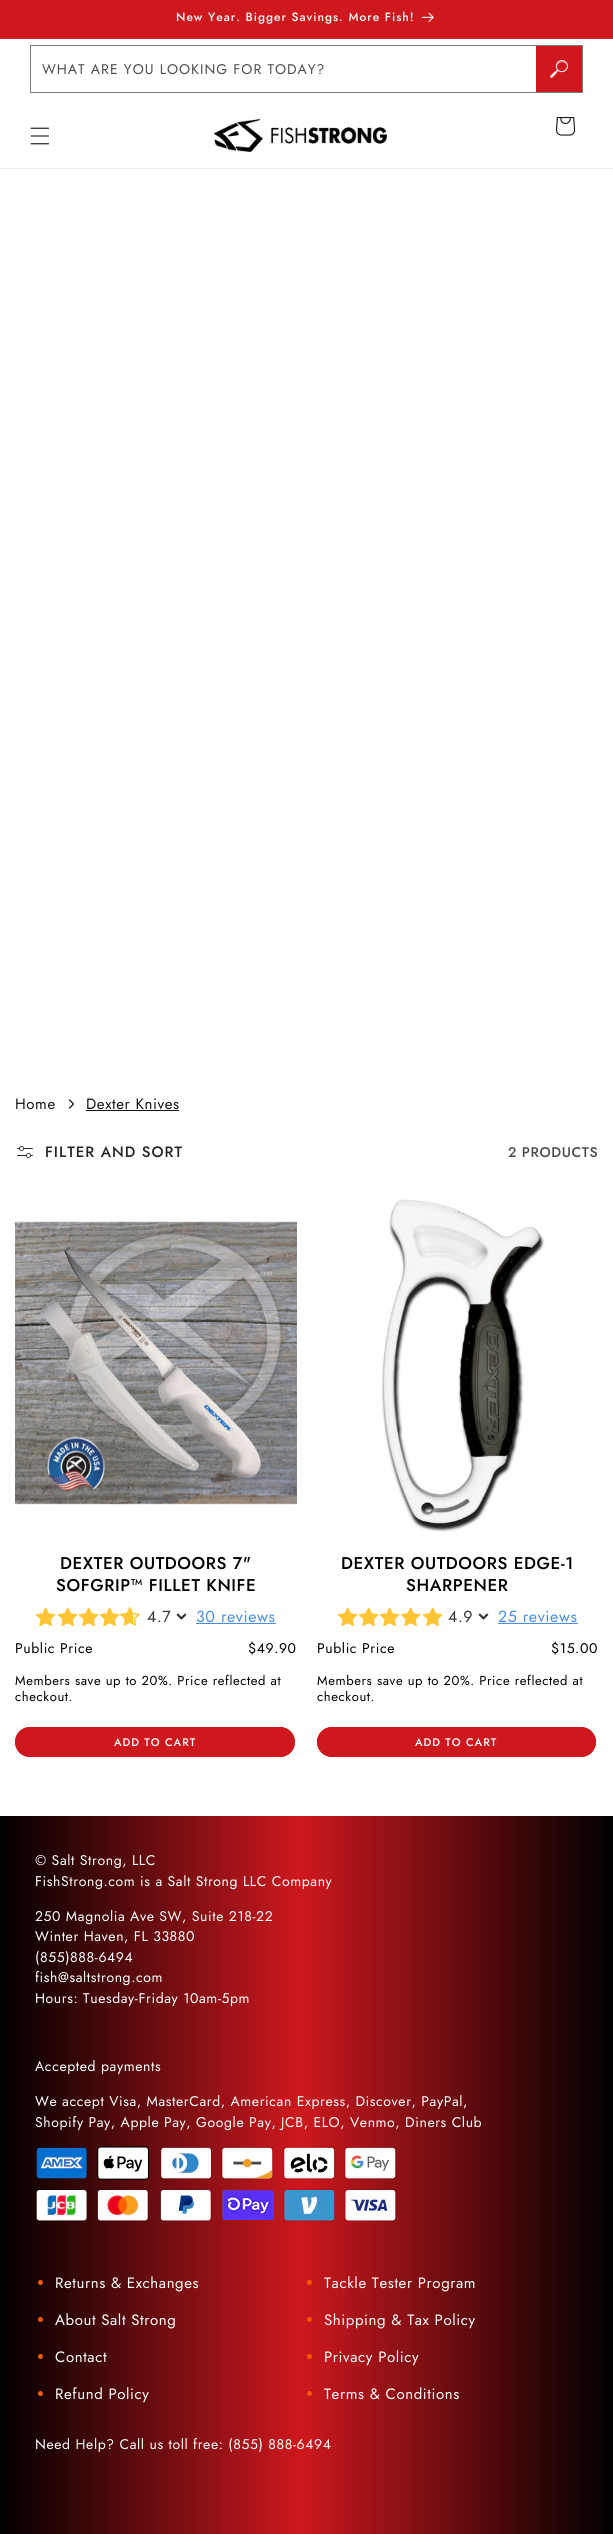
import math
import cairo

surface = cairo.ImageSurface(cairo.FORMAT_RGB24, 613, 2534)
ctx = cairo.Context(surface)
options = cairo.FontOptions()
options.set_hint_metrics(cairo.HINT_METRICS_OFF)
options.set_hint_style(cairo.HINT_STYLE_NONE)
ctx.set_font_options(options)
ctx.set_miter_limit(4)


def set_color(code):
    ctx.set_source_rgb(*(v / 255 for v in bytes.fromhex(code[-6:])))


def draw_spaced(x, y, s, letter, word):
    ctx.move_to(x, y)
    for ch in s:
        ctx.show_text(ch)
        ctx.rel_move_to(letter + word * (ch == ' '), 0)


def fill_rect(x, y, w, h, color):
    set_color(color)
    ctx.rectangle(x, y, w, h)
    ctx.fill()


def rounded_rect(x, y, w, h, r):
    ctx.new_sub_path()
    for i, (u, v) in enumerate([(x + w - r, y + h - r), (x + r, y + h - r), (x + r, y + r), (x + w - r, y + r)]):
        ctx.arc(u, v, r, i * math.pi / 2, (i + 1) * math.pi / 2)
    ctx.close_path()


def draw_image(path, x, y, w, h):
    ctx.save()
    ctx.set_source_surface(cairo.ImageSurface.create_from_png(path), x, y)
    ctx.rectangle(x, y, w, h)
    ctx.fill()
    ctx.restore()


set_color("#ffffff")
ctx.paint()
fill_rect(0, 0, 613, 38, "#ce181e")
fill_rect(0, 38, 613, 1, "#d22a30")
ctx.select_font_face("Jost Medium")
ctx.set_font_size(12)
set_color("#ffffff")
draw_spaced(176, 21, "New Year. Bigger Savings. More Fish!", 1, 0)
draw_image("assets/img1.png", 422, 12, 12, 11)
fill_rect(0, 168, 613, 1, "#ececec")
ctx.rectangle(30.5, 45.5, 552, 47)
set_color("#7d7d7d")
ctx.set_line_width(1)
ctx.stroke()
ctx.select_font_face("Jost")
ctx.set_font_size(14)
set_color("#4d4d4d")
draw_spaced(42, 74, "WHAT ARE YOU LOOKING FOR TODAY?", 1, 0)
fill_rect(536, 46, 46, 46, "#ce181e")
draw_image("assets/img2.png", 550, 60, 18, 18)
draw_image("assets/img3.png", 30, 127, 20, 18)
draw_image("assets/img4.png", 214, 119, 173, 33)
draw_image("assets/img5.png", 556, 117, 20, 19)
ctx.set_font_size(15)
set_color("#121212")
draw_spaced(15, 1109, "Home", 0.6, 0)
ctx.new_path()
ctx.move_to(69.5, 1100)
ctx.line_to(73.5, 1104)
ctx.line_to(69.5, 1108)
ctx.set_line_width(1.2)
ctx.set_line_cap(cairo.LINE_CAP_ROUND)
ctx.set_line_join(cairo.LINE_JOIN_ROUND)
ctx.stroke()
draw_spaced(86, 1109, "Dexter Knives", 0.6, 0)
fill_rect(86, 1110, 93, 1, "#121212")
draw_image("assets/img6.png", 17, 1146, 16, 12)
ctx.select_font_face("Jost Medium")
set_color("#262626")
draw_spaced(45, 1157, "FILTER AND SORT", 1, 0)
ctx.set_font_size(14)
set_color("#4d4d4d")
draw_spaced(508, 1157, "2 PRODUCTS", 0.6, 0)
draw_image("assets/img7.png", 15, 1221, 282, 284)
ctx.set_font_size(17)
set_color("#000000")
draw_spaced(60, 1569, "DEXTER OUTDOORS 7\"", 0.6, 0)
draw_spaced(56, 1591, "SOFGRIP™ FILLET KNIFE", 0.6, 0)
draw_image("assets/img8.png", 35, 1607, 21, 20)
draw_image("assets/img8.png", 57, 1607, 21, 20)
draw_image("assets/img8.png", 78, 1607, 21, 20)
draw_image("assets/img8.png", 99, 1607, 21, 20)
draw_image("assets/img9.png", 120, 1607, 20, 19)
ctx.select_font_face("Jost")
ctx.set_font_size(16)
set_color("#353535")
draw_spaced(147, 1622, "4.7", 0.6, 0)
draw_image("assets/img10.png", 176, 1613, 11, 7)
set_color("#4990e2")
draw_spaced(196, 1622, "30 reviews", 0.6, 0)
fill_rect(196, 1623, 80, 1, "#4990e2")
ctx.set_font_size(14)
set_color("#000000")
draw_spaced(15, 1653, "Public Price", 0.6, 0)
draw_spaced(248, 1653, "$49.90", 0.6, 0)
ctx.set_font_size(13)
draw_spaced(15, 1685, "Members save up to 20%. Price reflected at", 0.6, 0)
draw_spaced(15, 1701, "checkout.", 0.6, 0)
set_color("#ce181e")
rounded_rect(15, 1727, 280, 30, 15)
ctx.fill()
rounded_rect(15.5, 1727.5, 279, 29, 14.5)
ctx.set_line_width(1)
ctx.set_line_cap(cairo.LINE_CAP_BUTT)
ctx.set_line_join(cairo.LINE_JOIN_MITER)
ctx.stroke()
ctx.select_font_face("Jost Medium")
ctx.set_font_size(11)
set_color("#ffffff")
draw_spaced(114, 1746, "ADD TO CART", 1, 0)
draw_image("assets/img11.png", 381, 1199, 164, 333)
ctx.set_font_size(17)
set_color("#000000")
draw_spaced(341, 1569, "DEXTER OUTDOORS EDGE-1", 0.6, 0)
draw_spaced(406, 1591, "SHARPENER", 0.6, 0)
draw_image("assets/img8.png", 337, 1607, 21, 20)
draw_image("assets/img8.png", 358, 1607, 21, 20)
draw_image("assets/img8.png", 379, 1607, 21, 20)
draw_image("assets/img8.png", 400, 1607, 21, 20)
draw_image("assets/img8.png", 422, 1607, 21, 20)
ctx.select_font_face("Jost")
ctx.set_font_size(16)
set_color("#353535")
draw_spaced(448, 1622, "4.9", 0.6, 0)
draw_image("assets/img10.png", 478, 1613, 11, 7)
set_color("#4990e2")
draw_spaced(498, 1622, "25 reviews", 0.6, 0)
fill_rect(498, 1623, 80, 1, "#4990e2")
ctx.set_font_size(14)
set_color("#000000")
draw_spaced(317, 1653, "Public Price", 0.6, 0)
draw_spaced(551, 1653, "$15.00", 0.6, 0)
ctx.set_font_size(13)
draw_spaced(317, 1685, "Members save up to 20%. Price reflected at", 0.6, 0)
draw_spaced(317, 1701, "checkout.", 0.6, 0)
set_color("#ce181e")
rounded_rect(317, 1727, 279, 30, 15)
ctx.fill()
rounded_rect(317.5, 1727.5, 278, 29, 14.5)
ctx.stroke()
ctx.select_font_face("Jost Medium")
ctx.set_font_size(11)
set_color("#ffffff")
draw_spaced(415, 1746, "ADD TO CART", 1, 0)
gradient = cairo.LinearGradient(0, 2185, 613, 2185)
gradient.add_color_stop_rgba(0, 0, 0, 0, 1)
gradient.add_color_stop_rgba(0.49, 0.808, 0.094, 0.118, 1)
gradient.add_color_stop_rgba(1, 0, 0, 0, 1)
ctx.set_source(gradient)
ctx.rectangle(0, 1816, 613, 718)
ctx.fill()
ctx.select_font_face("Jost")
ctx.set_font_size(14)
set_color("#ffffff")
draw_spaced(35, 1865, "© Salt Strong, LLC", 0.6, 0)
draw_spaced(35, 1886, "FishStrong.com is a Salt Strong LLC Company", 0.6, 0)
draw_spaced(35, 1921, "250 Magnolia Ave SW, Suite 218-22", 0.6, 0)
draw_spaced(35, 1941, "Winter Haven, FL 33880", 0.6, 0)
draw_spaced(35, 1962, "(855)888-6494", 0.6, 0)
draw_spaced(35, 1982, "fish@saltstrong.com", 0.6, 0)
draw_spaced(35, 2003, "Hours: Tuesday-Friday 10am-5pm", 0.6, 0)
draw_spaced(35, 2071, "Accepted payments", 0.6, 0)
draw_spaced(35, 2106, "We accept Visa, MasterCard, American Express, Discover, PayPal,", 0.6, 0)
draw_spaced(35, 2127, "Shopify Pay, Apple Pay, Google Pay, JCB, ELO, Venmo, Diners Club", 0.6, 0)
draw_image("assets/img12.png", 36, 2146, 361, 76)
set_color("#f35905")
ctx.arc(40.5, 2282.5, 2.5, 0, 2 * math.pi)
ctx.fill()
ctx.set_font_size(15)
set_color("#ffffff")
draw_spaced(55, 2288, "Returns & Exchanges", 0.6, 0)
set_color("#f35905")
ctx.new_path()
ctx.arc(309.5, 2282.5, 2.5, 0, 2 * math.pi)
ctx.fill()
set_color("#ffffff")
draw_spaced(324, 2288, "Tackle Tester Program", 0.6, 0)
set_color("#f35905")
ctx.new_path()
ctx.arc(40.5, 2319.5, 2.5, 0, 2 * math.pi)
ctx.fill()
set_color("#ffffff")
draw_spaced(55, 2325, "About Salt Strong", 0.6, 0)
set_color("#f35905")
ctx.new_path()
ctx.arc(309.5, 2319.5, 2.5, 0, 2 * math.pi)
ctx.fill()
set_color("#ffffff")
draw_spaced(324, 2325, "Shipping & Tax Policy", 0.6, 0)
set_color("#f35905")
ctx.new_path()
ctx.arc(40.5, 2356.5, 2.5, 0, 2 * math.pi)
ctx.fill()
set_color("#ffffff")
draw_spaced(55, 2362, "Contact", 0.6, 0)
set_color("#f35905")
ctx.new_path()
ctx.arc(309.5, 2356.5, 2.5, 0, 2 * math.pi)
ctx.fill()
set_color("#ffffff")
draw_spaced(324, 2362, "Privacy Policy", 0.6, 0)
set_color("#f35905")
ctx.new_path()
ctx.arc(40.5, 2393.5, 2.5, 0, 2 * math.pi)
ctx.fill()
set_color("#ffffff")
draw_spaced(55, 2399, "Refund Policy", 0.6, 0)
set_color("#f35905")
ctx.new_path()
ctx.arc(309.5, 2393.5, 2.5, 0, 2 * math.pi)
ctx.fill()
set_color("#ffffff")
draw_spaced(324, 2399, "Terms & Conditions", 0.6, 0)
ctx.set_font_size(14)
draw_spaced(35, 2449, "Need Help? Call us toll free: (855) 888-6494", 0.6, 0)
surface.write_to_png("output.png")
